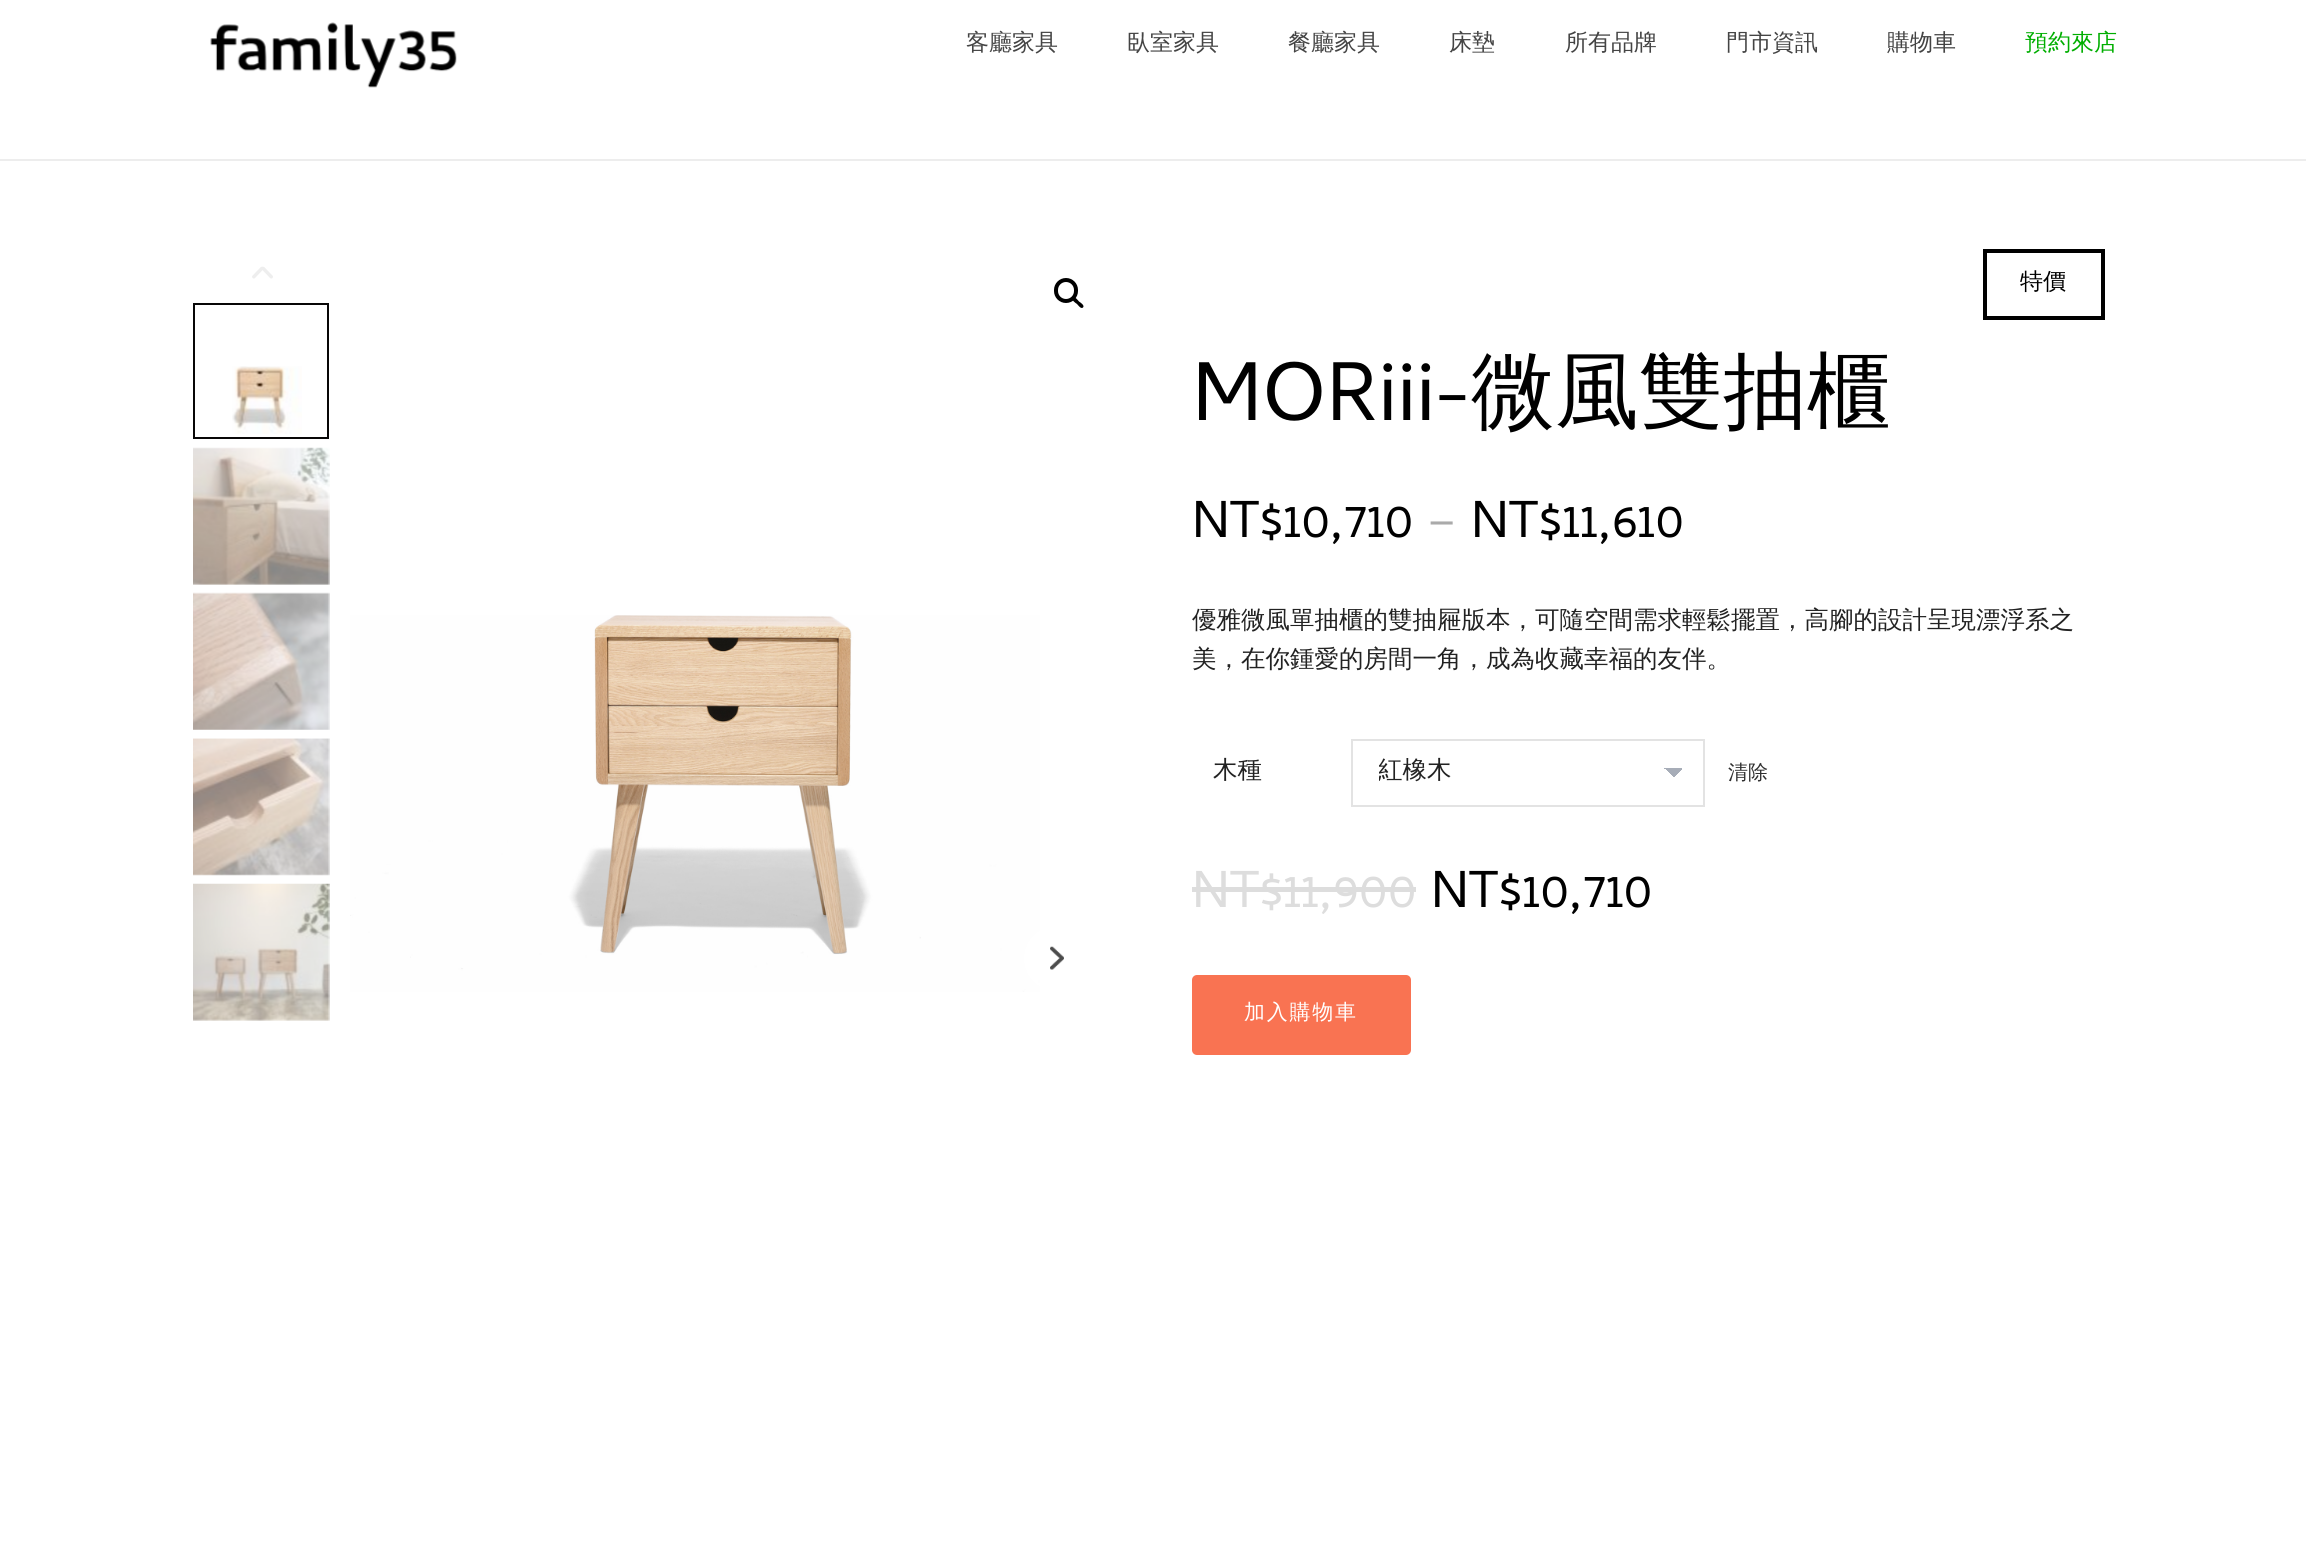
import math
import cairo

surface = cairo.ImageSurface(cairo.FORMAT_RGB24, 2306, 1545)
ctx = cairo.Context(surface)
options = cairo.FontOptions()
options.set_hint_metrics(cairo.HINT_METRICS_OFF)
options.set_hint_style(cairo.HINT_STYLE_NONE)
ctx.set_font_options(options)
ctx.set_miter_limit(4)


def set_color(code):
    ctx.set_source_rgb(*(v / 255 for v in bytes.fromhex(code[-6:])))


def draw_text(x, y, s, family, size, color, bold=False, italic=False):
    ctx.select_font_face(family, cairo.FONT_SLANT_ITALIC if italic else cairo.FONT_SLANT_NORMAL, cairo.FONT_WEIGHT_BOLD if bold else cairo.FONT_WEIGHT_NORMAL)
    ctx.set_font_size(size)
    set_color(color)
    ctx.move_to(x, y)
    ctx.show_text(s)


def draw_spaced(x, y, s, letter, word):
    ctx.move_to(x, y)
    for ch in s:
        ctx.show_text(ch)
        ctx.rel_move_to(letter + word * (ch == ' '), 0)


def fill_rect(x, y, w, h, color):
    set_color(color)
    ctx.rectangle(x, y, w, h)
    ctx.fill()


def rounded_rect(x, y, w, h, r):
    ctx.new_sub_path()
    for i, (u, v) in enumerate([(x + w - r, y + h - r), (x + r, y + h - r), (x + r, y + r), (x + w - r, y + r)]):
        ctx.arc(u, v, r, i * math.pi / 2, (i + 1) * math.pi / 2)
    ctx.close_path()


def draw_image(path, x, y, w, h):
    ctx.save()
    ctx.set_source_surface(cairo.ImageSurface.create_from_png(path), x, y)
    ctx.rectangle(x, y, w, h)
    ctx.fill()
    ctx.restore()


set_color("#ffffff")
ctx.paint()
fill_rect(0, 159, 2306, 2, "#ededed")
draw_image("assets/img1.png", 210, 22, 247, 66)
draw_text(966, 50, "客廳家具", "WenQuanYi Zen Hei Medium", 23, "#444444")
draw_text(1127, 50, "臥室家具", "WenQuanYi Zen Hei Medium", 23, "#444444")
draw_text(1288, 50, "餐廳家具", "WenQuanYi Zen Hei Medium", 23, "#444444")
draw_text(1449, 50, "床墊", "WenQuanYi Zen Hei Medium", 23, "#444444")
draw_text(1565, 50, "所有品牌", "WenQuanYi Zen Hei Medium", 23, "#444444")
draw_text(1726, 50, "門市資訊", "WenQuanYi Zen Hei Medium", 23, "#444444")
draw_text(1887, 50, "購物車", "WenQuanYi Zen Hei Medium", 23, "#444444")
draw_text(2025, 50, "預約來店", "WenQuanYi Zen Hei Medium", 23, "#00ae00")
draw_image("assets/img2.png", 252, 266, 21, 13)
draw_image("assets/img3.png", 232, 366, 70, 68)
ctx.rectangle(194, 304, 134, 134)
set_color("#080707")
ctx.stroke()
draw_image("assets/img4.png", 193, 447, 137, 138)
draw_image("assets/img5.png", 193, 592, 137, 138)
draw_image("assets/img6.png", 193, 738, 137, 138)
draw_image("assets/img7.png", 193, 883, 137, 138)
rounded_rect(1056, 280, 20, 21, 10)
set_color("#000000")
ctx.set_line_width(4)
ctx.stroke()
ctx.new_path()
ctx.move_to(1073, 298)
ctx.curve_to(1075, 296, 1078, 300.5, 1079, 301.5)
ctx.curve_to(1080.5, 302.5, 1085, 305.5, 1083, 307.5)
ctx.curve_to(1081, 309.5, 1078, 305, 1077, 304)
ctx.curve_to(1075.5, 303, 1071, 300, 1073, 298)
ctx.close_path()
ctx.fill()
draw_image("assets/img8.png", 350, 615, 690, 377)
ctx.set_source_rgba(1, 1, 1, 0.7)
ctx.arc(1056.5, 958.5, 32.5, 0, 2 * math.pi)
ctx.fill()
draw_image("assets/img9.png", 1050, 946, 14, 24)
ctx.rectangle(1985, 251, 118, 67)
set_color("#000000")
ctx.stroke()
draw_text(2020, 289, "特價", "WenQuanYi Zen Hei Medium", 23, "#000000")
draw_text(1192, 420, "MORiii-", "Cambay", 84, "#000000")
draw_text(1471, 420, "微風雙抽櫃", "WenQuanYi Zen Hei Medium", 84, "#000000")
draw_text(1192, 537, "NT$10,710", "Cambay", 52.5, "#000000")
draw_text(1428, 537, "–", "Cambay", 52.5, "#aaaaaa")
draw_text(1471, 537, "NT$11,610", "Cambay", 52.5, "#000000")
draw_text(1192, 628, "優雅微風單抽櫃的雙抽屜版本，可隨空間需求輕鬆擺置，高腳的設計呈現漂浮系之", "WenQuanYi Zen Hei Medium", 24.5, "#222222")
draw_text(1192, 667, "美，在你鍾愛的房間一角，成為收藏幸福的友伴。", "WenQuanYi Zen Hei Medium", 24.5, "#222222")
draw_text(1213, 778, "木種", "WenQuanYi Zen Hei Medium", 24.5, "#222222")
gradient = cairo.LinearGradient(1674, 769, 1682, 778)
gradient.add_color_stop_rgba(0.5, 0.655, 0.678, 0.722, 1)
gradient.add_color_stop_rgba(0.5, 1, 1, 1, 1)
ctx.set_source(gradient)
ctx.rectangle(1673, 768, 9, 9)
ctx.fill()
gradient = cairo.LinearGradient(1665, 778, 1674, 769)
gradient.add_color_stop_rgba(0.5, 1, 1, 1, 1)
gradient.add_color_stop_rgba(0.5, 0.655, 0.678, 0.722, 1)
ctx.set_source(gradient)
ctx.rectangle(1664, 768, 9, 8)
ctx.fill()
ctx.rectangle(1352, 740, 352, 66)
set_color("#e3e3e3")
ctx.set_line_width(2)
ctx.stroke()
ctx.save()
ctx.rectangle(1379, 754, 254, 37)
ctx.clip()
draw_text(1378, 778, "紅橡木", "WenQuanYi Zen Hei Medium", 24.5, "#222222")
ctx.restore()
draw_text(1728, 779, "清除", "WenQuanYi Zen Hei Medium", 20, "#2e2e2e")
draw_text(1192, 907, "NT$11,900", "Cambay", 52.5, "#dddddd")
fill_rect(1192, 887, 224, 5, "#dddddd")
draw_text(1431, 907, "NT$10,710", "Cambay", 52.5, "#000000")
set_color("#f97352")
rounded_rect(1192, 975, 219, 80, 5)
ctx.fill()
ctx.select_font_face("WenQuanYi Zen Hei Medium")
ctx.set_font_size(21)
set_color("#ffffff")
draw_spaced(1244, 1019, "加入購物車", 1.75, 0)
surface.write_to_png("output.png")
